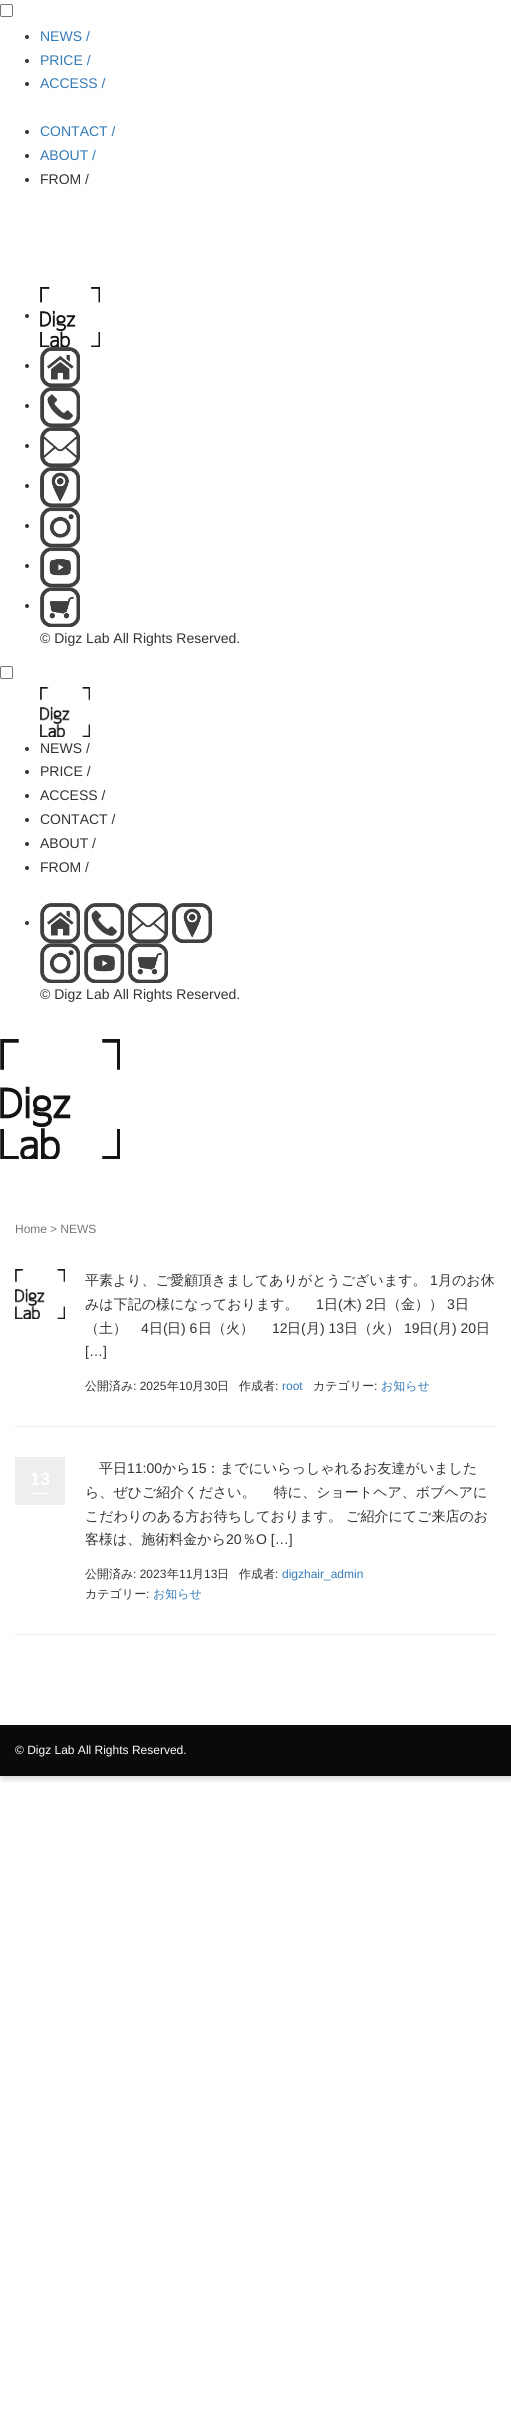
import math
import cairo

surface = cairo.ImageSurface(cairo.FORMAT_RGB24, 511, 2413)
ctx = cairo.Context(surface)
options = cairo.FontOptions()
options.set_hint_metrics(cairo.HINT_METRICS_OFF)
options.set_hint_style(cairo.HINT_STYLE_NONE)
ctx.set_font_options(options)
ctx.set_miter_limit(4)


def set_color(code):
    ctx.set_source_rgb(*(v / 255 for v in bytes.fromhex(code[-6:])))


def draw_text(x, y, s, family, size, color, bold=False, italic=False):
    ctx.select_font_face(family, cairo.FONT_SLANT_ITALIC if italic else cairo.FONT_SLANT_NORMAL, cairo.FONT_WEIGHT_BOLD if bold else cairo.FONT_WEIGHT_NORMAL)
    ctx.set_font_size(size)
    set_color(color)
    ctx.move_to(x, y)
    ctx.show_text(s)


def fill_rect(x, y, w, h, color):
    set_color(color)
    ctx.rectangle(x, y, w, h)
    ctx.fill()


def rounded_rect(x, y, w, h, r):
    ctx.new_sub_path()
    for i, (u, v) in enumerate([(x + w - r, y + h - r), (x + r, y + h - r), (x + r, y + r), (x + w - r, y + r)]):
        ctx.arc(u, v, r, i * math.pi / 2, (i + 1) * math.pi / 2)
    ctx.close_path()


def draw_shadow(x, y, w, h, r, blur, alpha):
    ctx.push_group_with_content(cairo.CONTENT_ALPHA)
    ctx.set_operator(cairo.OPERATOR_SOURCE)
    for i in range(15, -16, -2):
        e = blur * i / 6
        if min(w, h) + 2 * e > 0:
            ctx.set_source_rgba(0, 0, 0, alpha * math.erfc((i - 1) / 8.5) / 2)
            rounded_rect(x - e, y - e, w + 2 * e, h + 2 * e, max(0, min(r + e + blur * .6, min(w, h) / 2 + e)))
            ctx.fill()
    ctx.mask(ctx.pop_group())


def draw_image(path, x, y, w, h):
    ctx.save()
    ctx.set_source_surface(cairo.ImageSurface.create_from_png(path), x, y)
    ctx.rectangle(x, y, w, h)
    ctx.fill()
    ctx.restore()


set_color("#ffffff")
ctx.paint()
ctx.save()
ctx.rectangle(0, 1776, 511, 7)
ctx.clip()
set_color("#000000")
draw_shadow(3, 0, 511, 1776, 0, 5, 0.3)
ctx.restore()
rounded_rect(0.5, 4.5, 12, 12, 1.5)
set_color("#767676")
ctx.set_line_width(1)
ctx.stroke()
set_color("#333333")
ctx.arc(27, 37, 2, 0, 2 * math.pi)
ctx.fill()
draw_text(40, 41, "NEWS /", "Liberation Sans", 14, "#337ab7")
set_color("#333333")
ctx.new_path()
ctx.arc(27, 61, 2, 0, 2 * math.pi)
ctx.fill()
draw_text(40, 65, "PRICE /", "Liberation Sans", 14, "#337ab7")
set_color("#333333")
ctx.new_path()
ctx.arc(27, 84, 2, 0, 2 * math.pi)
ctx.fill()
draw_text(40, 88, "ACCESS /", "Liberation Sans", 14, "#337ab7")
set_color("#333333")
ctx.new_path()
ctx.arc(27, 132, 2, 0, 2 * math.pi)
ctx.fill()
draw_text(40, 136, "CONTACT /", "Liberation Sans", 14, "#337ab7")
set_color("#333333")
ctx.new_path()
ctx.arc(27, 156, 2, 0, 2 * math.pi)
ctx.fill()
draw_text(40, 160, "ABOUT /", "Liberation Sans", 14, "#337ab7")
set_color("#333333")
ctx.new_path()
ctx.arc(27, 180, 2, 0, 2 * math.pi)
ctx.fill()
draw_text(40, 184, "FROM /", "Liberation Sans", 14, "#333333")
ctx.new_path()
ctx.arc(27, 316, 2, 0, 2 * math.pi)
ctx.fill()
draw_image("assets/img1.png", 40, 287, 60, 60)
ctx.arc(27, 366, 2, 0, 2 * math.pi)
ctx.fill()
draw_image("assets/img2.png", 40, 347, 40, 40)
ctx.arc(27, 406, 2, 0, 2 * math.pi)
ctx.fill()
draw_image("assets/img3.png", 40, 387, 40, 40)
ctx.arc(27, 446, 2, 0, 2 * math.pi)
ctx.fill()
draw_image("assets/img4.png", 40, 427, 40, 40)
ctx.arc(27, 486, 2, 0, 2 * math.pi)
ctx.fill()
draw_image("assets/img5.png", 40, 467, 40, 40)
ctx.arc(27, 526, 2, 0, 2 * math.pi)
ctx.fill()
draw_image("assets/img6.png", 40, 507, 40, 40)
ctx.arc(27, 566, 2, 0, 2 * math.pi)
ctx.fill()
draw_image("assets/img7.png", 40, 547, 40, 40)
ctx.arc(27, 606, 2, 0, 2 * math.pi)
ctx.fill()
draw_image("assets/img8.png", 40, 587, 40, 40)
draw_text(40, 643, "© Digz Lab All Rights Reserved.", "Liberation Sans", 14, "#333333")
rounded_rect(0.5, 666.5, 12, 12, 1.5)
set_color("#767676")
ctx.stroke()
draw_image("assets/img9.png", 40, 687, 50, 50)
set_color("#333333")
ctx.arc(27, 749, 2, 0, 2 * math.pi)
ctx.fill()
draw_text(40, 753, "NEWS /", "Liberation Sans", 14, "#333333")
ctx.new_path()
ctx.arc(27, 772, 2, 0, 2 * math.pi)
ctx.fill()
draw_text(40, 776, "PRICE /", "Liberation Sans", 14, "#333333")
ctx.new_path()
ctx.arc(27, 796, 2, 0, 2 * math.pi)
ctx.fill()
draw_text(40, 800, "ACCESS /", "Liberation Sans", 14, "#333333")
ctx.new_path()
ctx.arc(27, 820, 2, 0, 2 * math.pi)
ctx.fill()
draw_text(40, 824, "CONTACT /", "Liberation Sans", 14, "#333333")
ctx.new_path()
ctx.arc(27, 844, 2, 0, 2 * math.pi)
ctx.fill()
draw_text(40, 848, "ABOUT /", "Liberation Sans", 14, "#333333")
ctx.new_path()
ctx.arc(27, 868, 2, 0, 2 * math.pi)
ctx.fill()
draw_text(40, 872, "FROM /", "Liberation Sans", 14, "#333333")
ctx.new_path()
ctx.arc(27, 923, 2, 0, 2 * math.pi)
ctx.fill()
draw_image("assets/img2.png", 40, 903, 40, 40)
draw_image("assets/img10.png", 84, 903, 40, 40)
draw_image("assets/img4.png", 128, 903, 40, 40)
draw_image("assets/img5.png", 172, 903, 40, 40)
draw_image("assets/img11.png", 40, 943, 40, 40)
draw_image("assets/img12.png", 84, 943, 40, 40)
draw_image("assets/img8.png", 128, 943, 40, 40)
draw_text(40, 999, "© Digz Lab All Rights Reserved.", "Liberation Sans", 14, "#333333")
draw_image("assets/img13.png", 0, 1039, 120, 120)
draw_text(15, 1233, "Home", "Liberation Sans", 12, "#777777")
draw_text(50, 1233, "> NEWS", "Liberation Sans", 12, "#777777")
fill_rect(15, 1426, 481, 1, "#eeeeee")
draw_image("assets/img9.png", 15, 1269, 50, 50)
draw_text(85, 1285, "平素より、ご愛顧頂きましてありがとうございます。", "WenQuanYi Zen Hei Medium", 14, "#333333")
draw_text(430, 1285, "1", "Liberation Sans", 14, "#333333")
draw_text(438, 1285, "月のお休", "WenQuanYi Zen Hei Medium", 14, "#333333")
draw_text(85, 1309, "みは下記の様になっております。", "WenQuanYi Zen Hei Medium", 14, "#333333")
draw_text(316, 1309, "1", "Liberation Sans", 14, "#333333")
draw_text(324, 1309, "日", "WenQuanYi Zen Hei Medium", 14, "#333333")
draw_text(338, 1309, "(", "Liberation Sans", 14, "#333333")
draw_text(343, 1309, "木", "WenQuanYi Zen Hei Medium", 14, "#333333")
draw_text(357, 1309, ") 2", "Liberation Sans", 14, "#333333")
draw_text(373, 1309, "日（金））", "WenQuanYi Zen Hei Medium", 14, "#333333")
draw_text(447, 1309, "3", "Liberation Sans", 14, "#333333")
draw_text(455, 1309, "日", "WenQuanYi Zen Hei Medium", 14, "#333333")
draw_text(85, 1333, "（土）", "WenQuanYi Zen Hei Medium", 14, "#333333")
draw_text(141, 1333, "4", "Liberation Sans", 14, "#333333")
draw_text(149, 1333, "日", "WenQuanYi Zen Hei Medium", 14, "#333333")
draw_text(163, 1333, "(", "Liberation Sans", 14, "#333333")
draw_text(167, 1333, "日", "WenQuanYi Zen Hei Medium", 14, "#333333")
draw_text(181, 1333, ") 6", "Liberation Sans", 14, "#333333")
draw_text(198, 1333, "日（火）", "WenQuanYi Zen Hei Medium", 14, "#333333")
draw_text(272, 1333, "12", "Liberation Sans", 14, "#333333")
draw_text(287, 1333, "日", "WenQuanYi Zen Hei Medium", 14, "#333333")
draw_text(301, 1333, "(", "Liberation Sans", 14, "#333333")
draw_text(306, 1333, "月", "WenQuanYi Zen Hei Medium", 14, "#333333")
draw_text(320, 1333, ") 13", "Liberation Sans", 14, "#333333")
draw_text(344, 1333, "日（火）", "WenQuanYi Zen Hei Medium", 14, "#333333")
draw_text(404, 1333, "19", "Liberation Sans", 14, "#333333")
draw_text(419, 1333, "日", "WenQuanYi Zen Hei Medium", 14, "#333333")
draw_text(433, 1333, "(", "Liberation Sans", 14, "#333333")
draw_text(438, 1333, "月", "WenQuanYi Zen Hei Medium", 14, "#333333")
draw_text(452, 1333, ") 20", "Liberation Sans", 14, "#333333")
draw_text(476, 1333, "日", "WenQuanYi Zen Hei Medium", 14, "#333333")
draw_text(85, 1356, "[…]", "Liberation Sans", 14, "#333333")
draw_text(85, 1390, "公開済み", "WenQuanYi Zen Hei Medium", 12, "#333333")
draw_text(133, 1390, ": 2025", "Liberation Sans", 12, "#333333")
draw_text(167, 1390, "年", "WenQuanYi Zen Hei Medium", 12, "#333333")
draw_text(179, 1390, "10", "Liberation Sans", 12, "#333333")
draw_text(192, 1390, "月", "WenQuanYi Zen Hei Medium", 12, "#333333")
draw_text(204, 1390, "30", "Liberation Sans", 12, "#333333")
draw_text(217, 1390, "日", "WenQuanYi Zen Hei Medium", 12, "#333333")
draw_text(239, 1390, "作成者", "WenQuanYi Zen Hei Medium", 12, "#333333")
draw_text(275, 1390, ":", "Liberation Sans", 12, "#333333")
draw_text(282, 1390, "root", "Liberation Sans", 12, "#337ab7")
draw_text(313, 1390, "カテゴリー", "WenQuanYi Zen Hei Medium", 12, "#333333")
draw_text(374, 1390, ":", "Liberation Sans", 12, "#333333")
draw_text(381, 1390, "お知らせ", "WenQuanYi Zen Hei Medium", 12, "#337ab7")
fill_rect(15, 1634, 481, 1, "#eeeeee")
fill_rect(15, 1457, 50, 48, "#eeeeee")
draw_text(30, 1485, "13", "Liberation Sans", 18, "#ffffff", bold=True)
fill_rect(31, 1493, 18, 1, "#ffffff")
draw_text(99, 1473, "平日", "WenQuanYi Zen Hei Medium", 14, "#333333")
draw_text(127, 1473, "11:00", "Liberation Sans", 14, "#333333")
draw_text(162, 1473, "から", "WenQuanYi Zen Hei Medium", 14, "#333333")
draw_text(191, 1473, "15", "Liberation Sans", 14, "#333333")
draw_text(206, 1473, "：までにいらっしゃれるお友達がいました", "WenQuanYi Zen Hei Medium", 14, "#333333")
draw_text(85, 1497, "ら、ぜひご紹介ください。 　特に、ショートヘア、ボブヘアに", "WenQuanYi Zen Hei Medium", 14, "#333333")
draw_text(85, 1521, "こだわりのある方お待ちしております。 ご紹介にてご来店のお", "WenQuanYi Zen Hei Medium", 14, "#333333")
draw_text(85, 1544, "客様は、施術料金から", "WenQuanYi Zen Hei Medium", 14, "#333333")
draw_text(226, 1544, "20", "Liberation Sans", 14, "#333333")
draw_text(242, 1544, "％", "WenQuanYi Zen Hei Medium", 14, "#333333")
draw_text(256, 1544, "O […]", "Liberation Sans", 14, "#333333")
draw_text(85, 1578, "公開済み", "WenQuanYi Zen Hei Medium", 12, "#333333")
draw_text(133, 1578, ": 2023", "Liberation Sans", 12, "#333333")
draw_text(167, 1578, "年", "WenQuanYi Zen Hei Medium", 12, "#333333")
draw_text(179, 1578, "11", "Liberation Sans", 12, "#333333")
draw_text(192, 1578, "月", "WenQuanYi Zen Hei Medium", 12, "#333333")
draw_text(204, 1578, "13", "Liberation Sans", 12, "#333333")
draw_text(217, 1578, "日", "WenQuanYi Zen Hei Medium", 12, "#333333")
draw_text(239, 1578, "作成者", "WenQuanYi Zen Hei Medium", 12, "#333333")
draw_text(275, 1578, ":", "Liberation Sans", 12, "#333333")
draw_text(282, 1578, "digzhair_admin", "Liberation Sans", 12, "#337ab7")
draw_text(85, 1598, "カテゴリー", "WenQuanYi Zen Hei Medium", 12, "#333333")
draw_text(146, 1598, ":", "Liberation Sans", 12, "#333333")
draw_text(153, 1598, "お知らせ", "WenQuanYi Zen Hei Medium", 12, "#337ab7")
fill_rect(0, 1725, 511, 51, "#0a0a0a")
draw_text(15, 1754, "© Digz Lab All Rights Reserved.", "Liberation Sans", 12, "#ffffff")
surface.write_to_png("output.png")
